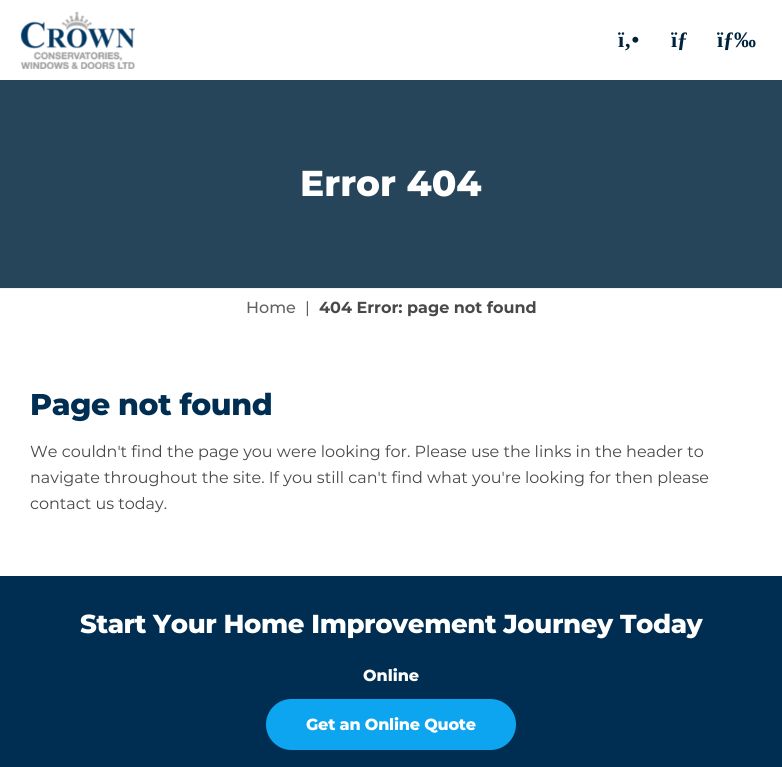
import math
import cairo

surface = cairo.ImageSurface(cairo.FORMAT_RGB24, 782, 767)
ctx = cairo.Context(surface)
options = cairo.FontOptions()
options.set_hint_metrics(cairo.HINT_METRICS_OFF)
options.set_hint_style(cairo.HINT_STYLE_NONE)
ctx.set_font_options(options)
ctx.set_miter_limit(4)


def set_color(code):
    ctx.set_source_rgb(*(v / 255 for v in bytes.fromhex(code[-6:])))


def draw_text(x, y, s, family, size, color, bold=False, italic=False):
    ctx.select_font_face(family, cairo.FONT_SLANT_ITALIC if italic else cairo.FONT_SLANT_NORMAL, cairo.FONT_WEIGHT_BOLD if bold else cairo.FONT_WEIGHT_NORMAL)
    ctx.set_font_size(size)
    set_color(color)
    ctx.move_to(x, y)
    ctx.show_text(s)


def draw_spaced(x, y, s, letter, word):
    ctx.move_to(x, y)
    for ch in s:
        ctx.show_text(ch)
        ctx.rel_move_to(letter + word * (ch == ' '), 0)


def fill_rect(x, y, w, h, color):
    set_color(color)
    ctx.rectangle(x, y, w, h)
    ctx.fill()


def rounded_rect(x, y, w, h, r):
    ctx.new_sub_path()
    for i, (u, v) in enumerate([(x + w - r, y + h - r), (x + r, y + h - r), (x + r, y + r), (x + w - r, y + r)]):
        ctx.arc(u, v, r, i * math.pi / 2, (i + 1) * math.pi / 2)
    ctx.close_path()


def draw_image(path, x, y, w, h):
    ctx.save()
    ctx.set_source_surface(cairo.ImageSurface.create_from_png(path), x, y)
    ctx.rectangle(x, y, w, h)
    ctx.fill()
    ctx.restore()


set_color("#ffffff")
ctx.paint()
draw_image("assets/img1.png", 20, 11, 115, 58)
draw_text(618, 47, "ï‚•", "Liberation Serif", 22, "#00233d", bold=True)
draw_text(671, 47, "ïƒ", "Liberation Serif", 22, "#00233d", bold=True)
draw_text(717, 47, "ïƒ‰", "Liberation Serif", 22, "#00233d", bold=True)
fill_rect(0, 80, 782, 208, "#26445a")
draw_text(300, 196, "Error 404", "Montserrat ExtraBold", 36, "#ffffff")
fill_rect(0, 288, 782, 1, "#f2f3f5")
draw_text(246, 313, "Home", "Montserrat Medium", 16, "#626262")
draw_text(305, 313, "|", "Montserrat", 16, "#484848")
draw_text(319, 313, "404 Error: page not found", "Montserrat", 16, "#484848", bold=True)
ctx.select_font_face("Montserrat ExtraBold")
ctx.set_font_size(30)
set_color("#002e52")
draw_spaced(30, 415, "Page not found", -0.4, 0)
draw_text(30, 457, "We couldn't find the page you were looking for. Please use the links in the header to", "Montserrat", 16, "#484848")
draw_text(30, 483, "navigate throughout the site. If you still can't find what you're looking for then please", "Montserrat", 16, "#484848")
draw_text(30, 509, "contact us today.", "Montserrat", 16, "#484848")
fill_rect(0, 576, 782, 191, "#002e52")
ctx.select_font_face("Montserrat ExtraBold")
ctx.set_font_size(26)
set_color("#ffffff")
draw_spaced(80, 633, "Start Your Home Improvement Journey Today", -0.4, 0)
draw_text(363, 681, "Online", "Montserrat ExtraBold", 16, "#ffffff")
set_color("#0ea5f0")
rounded_rect(267, 700, 248, 49, 24.5)
ctx.fill_preserve()
ctx.stroke()
set_color("#ffffff")
draw_spaced(306, 730, "Get an Online Quote", -0.2, 0)
surface.write_to_png("output.png")
